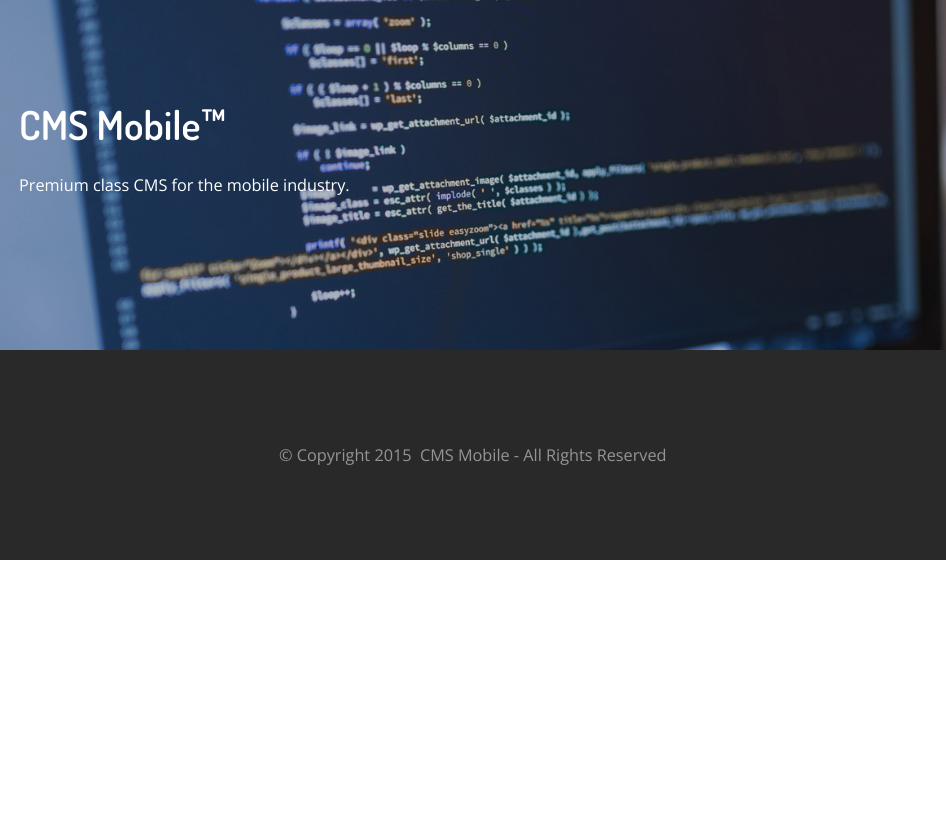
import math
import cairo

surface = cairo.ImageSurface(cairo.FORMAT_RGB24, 946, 815)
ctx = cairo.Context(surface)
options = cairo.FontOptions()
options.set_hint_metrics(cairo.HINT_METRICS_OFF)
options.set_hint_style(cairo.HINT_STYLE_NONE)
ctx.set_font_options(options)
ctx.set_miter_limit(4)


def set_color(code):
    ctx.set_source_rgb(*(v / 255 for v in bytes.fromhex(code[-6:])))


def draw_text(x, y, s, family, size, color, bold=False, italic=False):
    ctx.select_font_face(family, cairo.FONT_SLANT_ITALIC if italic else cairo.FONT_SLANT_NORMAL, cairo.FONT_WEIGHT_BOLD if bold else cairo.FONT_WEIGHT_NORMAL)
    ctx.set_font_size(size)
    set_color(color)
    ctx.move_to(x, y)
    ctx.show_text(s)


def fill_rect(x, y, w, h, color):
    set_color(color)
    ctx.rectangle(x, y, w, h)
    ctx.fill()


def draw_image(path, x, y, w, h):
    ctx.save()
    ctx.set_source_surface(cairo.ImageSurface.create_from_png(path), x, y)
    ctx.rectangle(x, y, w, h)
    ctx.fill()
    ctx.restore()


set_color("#ffffff")
ctx.paint()
draw_image("assets/img1.png", 0, 0, 946, 350)
draw_text(19, 140, "CMS Mobile™", "Dosis SemiBold", 40, "#ffffff")
draw_text(19, 191, "Premium class CMS for the mobile industry.", "Open Sans", 16.25, "#ffffff")
fill_rect(0, 350, 946, 210, "#292929")
draw_text(279, 461, "© Copyright 2015  CMS Mobile - All Rights Reserved", "Open Sans", 16.25, "#949494")
surface.write_to_png("output.png")
